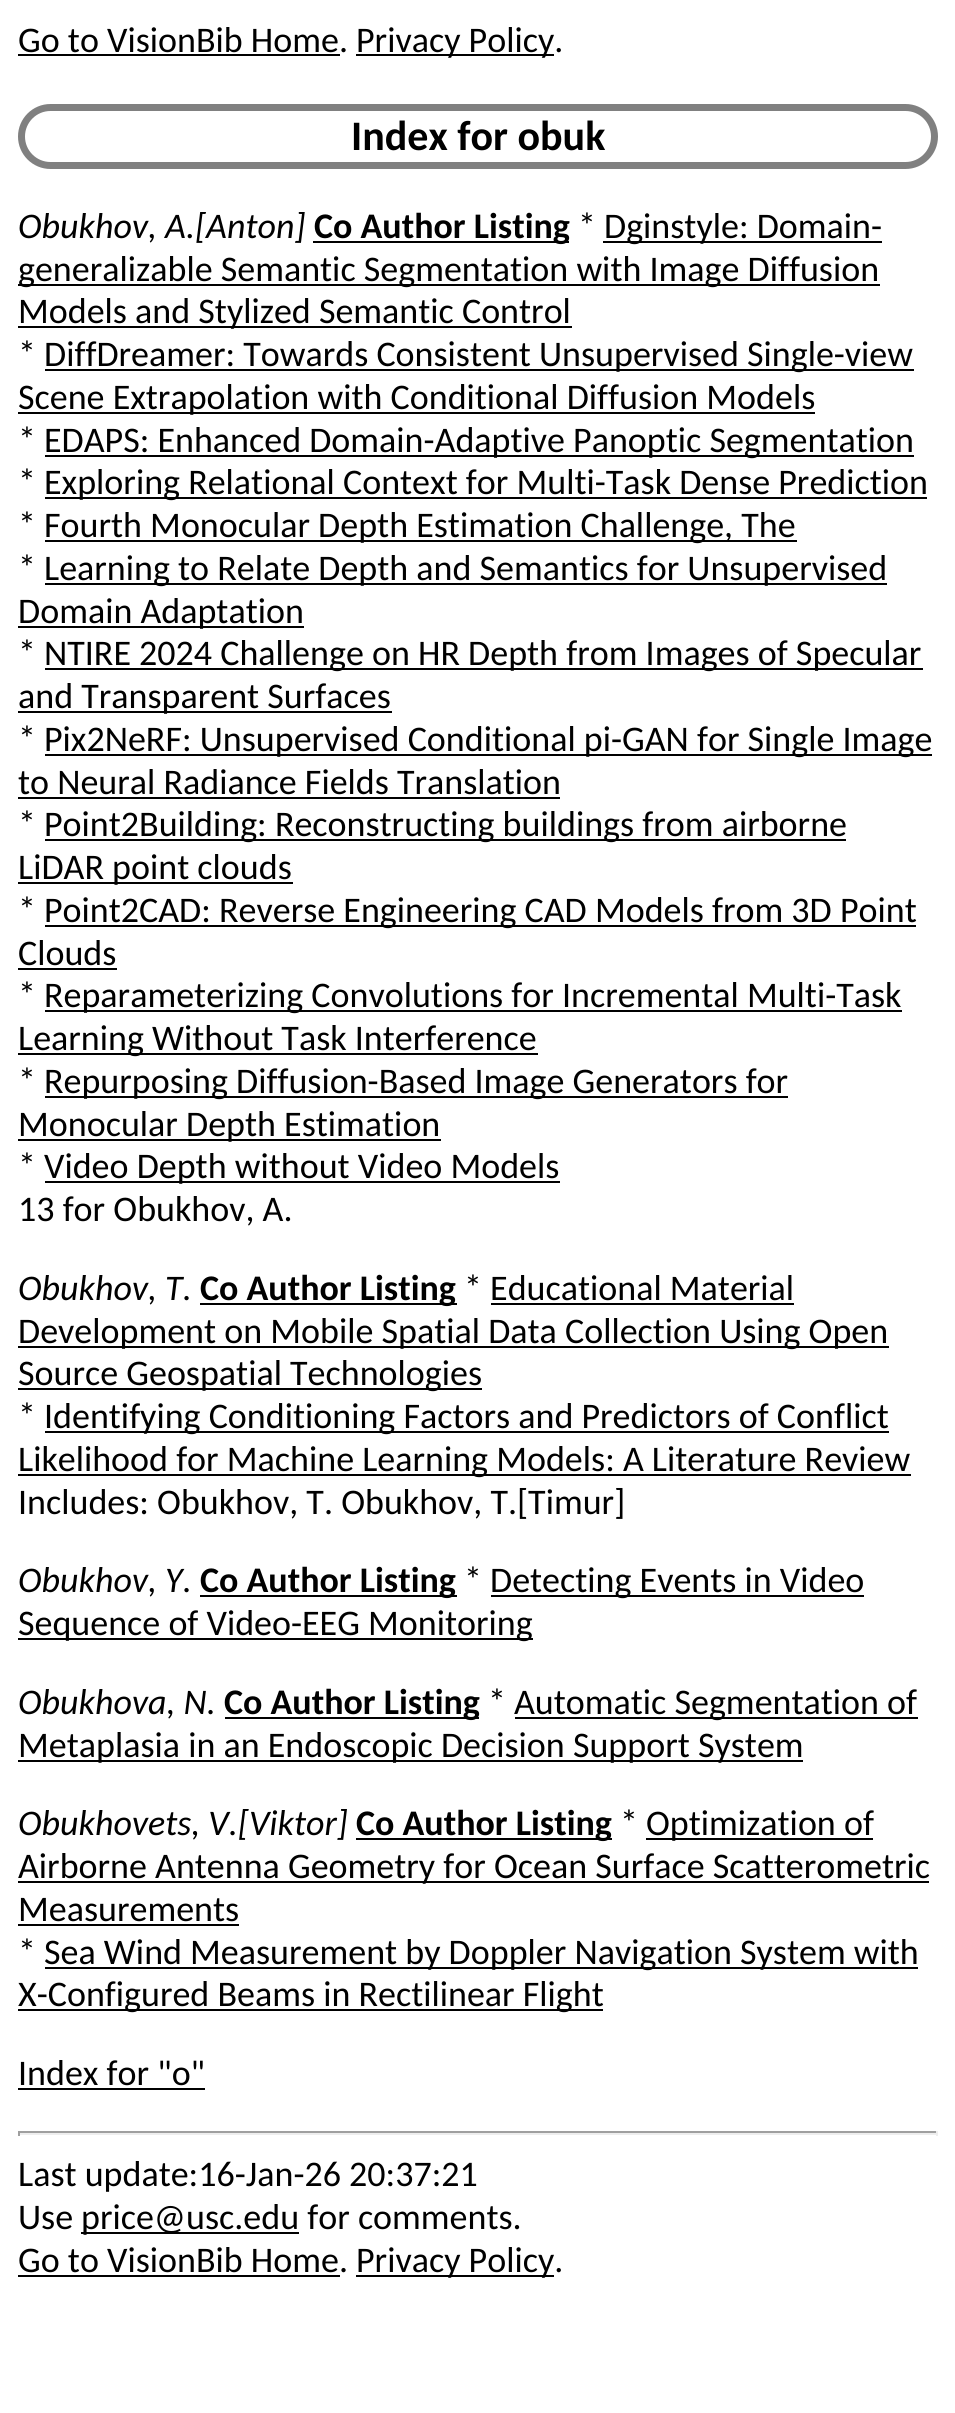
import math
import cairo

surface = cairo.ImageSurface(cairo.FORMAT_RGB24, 955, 2413)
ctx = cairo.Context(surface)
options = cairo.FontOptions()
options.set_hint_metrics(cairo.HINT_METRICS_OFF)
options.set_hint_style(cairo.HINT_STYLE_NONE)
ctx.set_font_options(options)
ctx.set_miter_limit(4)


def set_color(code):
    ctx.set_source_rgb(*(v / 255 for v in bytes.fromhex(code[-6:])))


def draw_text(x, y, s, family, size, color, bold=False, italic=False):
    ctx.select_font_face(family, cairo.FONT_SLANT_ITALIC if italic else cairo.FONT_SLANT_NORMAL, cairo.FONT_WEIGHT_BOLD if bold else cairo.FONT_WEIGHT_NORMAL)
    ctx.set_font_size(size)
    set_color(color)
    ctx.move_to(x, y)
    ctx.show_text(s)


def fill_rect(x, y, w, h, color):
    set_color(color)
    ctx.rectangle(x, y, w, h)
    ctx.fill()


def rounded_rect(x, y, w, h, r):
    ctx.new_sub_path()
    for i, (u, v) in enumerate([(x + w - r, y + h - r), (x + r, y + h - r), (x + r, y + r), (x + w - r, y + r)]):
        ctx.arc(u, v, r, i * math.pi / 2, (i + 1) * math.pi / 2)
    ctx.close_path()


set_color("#ffffff")
ctx.paint()
draw_text(18, 52, "Go to VisionBib Home.", "Carlito", 36, "#000000")
fill_rect(18, 54, 322, 2, "#000000")
fill_rect(356, 54, 198, 2, "#000000")
draw_text(356, 52, "Privacy Policy.", "Carlito", 36, "#000000")
rounded_rect(21.5, 107.5, 913, 58, 29)
set_color("#808080")
ctx.set_line_width(7)
ctx.stroke()
draw_text(351, 150, "Index for obuk", "Carlito", 42, "#000000", bold=True)
draw_text(18, 238, "Obukhov, A.[Anton]", "Carlito", 36, "#000000", italic=True)
fill_rect(313, 241, 256, 2, "#000000")
draw_text(314, 238, "Co Author Listing", "Carlito", 36, "#000000", bold=True)
draw_text(578, 238, "*", "Carlito", 36, "#000000")
fill_rect(603, 241, 279, 2, "#000000")
draw_text(604, 238, "Dginstyle: Domain-", "Carlito", 36, "#000000")
fill_rect(18, 284, 862, 2, "#000000")
draw_text(18, 281, "generalizable Semantic Segmentation with Image Diffusion", "Carlito", 36, "#000000")
fill_rect(18, 326, 554, 2, "#000000")
draw_text(18, 323, "Models and Stylized Semantic Control", "Carlito", 36, "#000000")
draw_text(18, 366, "*", "Carlito", 36, "#000000")
fill_rect(45, 369, 869, 2, "#000000")
draw_text(44, 366, "DiffDreamer: Towards Consistent Unsupervised Single-view", "Carlito", 36, "#000000")
fill_rect(18, 412, 797, 2, "#000000")
draw_text(18, 409, "Scene Extrapolation with Conditional Diffusion Models", "Carlito", 36, "#000000")
draw_text(18, 452, "*", "Carlito", 36, "#000000")
fill_rect(45, 455, 869, 2, "#000000")
draw_text(44, 452, "EDAPS: Enhanced Domain-Adaptive Panoptic Segmentation", "Carlito", 36, "#000000")
draw_text(18, 494, "*", "Carlito", 36, "#000000")
fill_rect(45, 497, 882, 2, "#000000")
draw_text(44, 494, "Exploring Relational Context for Multi-Task Dense Prediction", "Carlito", 36, "#000000")
draw_text(18, 537, "*", "Carlito", 36, "#000000")
fill_rect(45, 540, 752, 2, "#000000")
draw_text(44, 537, "Fourth Monocular Depth Estimation Challenge, The", "Carlito", 36, "#000000")
draw_text(18, 580, "*", "Carlito", 36, "#000000")
fill_rect(45, 583, 842, 2, "#000000")
draw_text(44, 580, "Learning to Relate Depth and Semantics for Unsupervised", "Carlito", 36, "#000000")
fill_rect(18, 626, 286, 2, "#000000")
draw_text(18, 623, "Domain Adaptation", "Carlito", 36, "#000000")
draw_text(18, 665, "*", "Carlito", 36, "#000000")
fill_rect(45, 668, 878, 2, "#000000")
draw_text(44, 665, "NTIRE 2024 Challenge on HR Depth from Images of Specular", "Carlito", 36, "#000000")
fill_rect(18, 711, 374, 2, "#000000")
draw_text(18, 708, "and Transparent Surfaces", "Carlito", 36, "#000000")
draw_text(18, 751, "*", "Carlito", 36, "#000000")
fill_rect(45, 754, 887, 2, "#000000")
draw_text(44, 751, "Pix2NeRF: Unsupervised Conditional pi-GAN for Single Image", "Carlito", 36, "#000000")
draw_text(18, 794, "to Neural Radiance Fields Translation", "Carlito", 36, "#000000")
fill_rect(18, 797, 542, 2, "#000000")
draw_text(18, 836, "*", "Carlito", 36, "#000000")
fill_rect(45, 839, 801, 2, "#000000")
draw_text(44, 836, "Point2Building: Reconstructing buildings from airborne", "Carlito", 36, "#000000")
fill_rect(18, 882, 275, 2, "#000000")
draw_text(18, 879, "LiDAR point clouds", "Carlito", 36, "#000000")
draw_text(18, 922, "*", "Carlito", 36, "#000000")
fill_rect(45, 925, 871, 2, "#000000")
draw_text(44, 922, "Point2CAD: Reverse Engineering CAD Models from 3D Point", "Carlito", 36, "#000000")
draw_text(18, 965, "Clouds", "Carlito", 36, "#000000")
fill_rect(18, 968, 99, 2, "#000000")
draw_text(18, 1007, "*", "Carlito", 36, "#000000")
fill_rect(45, 1010, 857, 2, "#000000")
draw_text(44, 1007, "Reparameterizing Convolutions for Incremental Multi-Task", "Carlito", 36, "#000000")
fill_rect(18, 1053, 520, 2, "#000000")
draw_text(18, 1050, "Learning Without Task Interference", "Carlito", 36, "#000000")
draw_text(18, 1093, "*", "Carlito", 36, "#000000")
fill_rect(45, 1096, 743, 2, "#000000")
draw_text(44, 1093, "Repurposing Diffusion-Based Image Generators for", "Carlito", 36, "#000000")
fill_rect(18, 1139, 423, 2, "#000000")
draw_text(18, 1136, "Monocular Depth Estimation", "Carlito", 36, "#000000")
draw_text(18, 1178, "*", "Carlito", 36, "#000000")
fill_rect(45, 1181, 515, 2, "#000000")
draw_text(44, 1178, "Video Depth without Video Models", "Carlito", 36, "#000000")
draw_text(18, 1221, "13 for Obukhov, A.", "Carlito", 36, "#000000")
draw_text(18, 1300, "Obukhov, T.", "Carlito", 36, "#000000", italic=True)
fill_rect(200, 1303, 257, 2, "#000000")
draw_text(200, 1300, "Co Author Listing", "Carlito", 36, "#000000", bold=True)
draw_text(464, 1300, "* Educational Material", "Carlito", 36, "#000000")
fill_rect(18, 1346, 871, 2, "#000000")
draw_text(18, 1343, "Development on Mobile Spatial Data Collection Using Open", "Carlito", 36, "#000000")
fill_rect(491, 1303, 303, 2, "#000000")
fill_rect(18, 1388, 464, 2, "#000000")
draw_text(18, 1385, "Source Geospatial Technologies", "Carlito", 36, "#000000")
draw_text(18, 1428, "*", "Carlito", 36, "#000000")
fill_rect(45, 1431, 844, 2, "#000000")
draw_text(44, 1428, "Identifying Conditioning Factors and Predictors of Conflict", "Carlito", 36, "#000000")
fill_rect(18, 1474, 893, 2, "#000000")
draw_text(18, 1471, "Likelihood for Machine Learning Models: A Literature Review", "Carlito", 36, "#000000")
draw_text(18, 1514, "Includes: Obukhov, T. Obukhov, T.[Timur]", "Carlito", 36, "#000000")
draw_text(18, 1592, "Obukhov, Y.", "Carlito", 36, "#000000", italic=True)
fill_rect(200, 1595, 257, 2, "#000000")
draw_text(200, 1592, "Co Author Listing", "Carlito", 36, "#000000", bold=True)
draw_text(464, 1592, "*", "Carlito", 36, "#000000")
fill_rect(491, 1595, 373, 2, "#000000")
draw_text(490, 1592, "Detecting Events in Video", "Carlito", 36, "#000000")
fill_rect(18, 1638, 515, 2, "#000000")
draw_text(18, 1635, "Sequence of Video-EEG Monitoring", "Carlito", 36, "#000000")
draw_text(18, 1714, "Obukhova, N.", "Carlito", 36, "#000000", italic=True)
fill_rect(225, 1717, 254, 2, "#000000")
draw_text(224, 1714, "Co Author Listing", "Carlito", 36, "#000000", bold=True)
draw_text(488, 1714, "*", "Carlito", 36, "#000000")
fill_rect(515, 1717, 403, 2, "#000000")
draw_text(514, 1714, "Automatic Segmentation of", "Carlito", 36, "#000000")
fill_rect(18, 1760, 785, 2, "#000000")
draw_text(18, 1757, "Metaplasia in an Endoscopic Decision Support System", "Carlito", 36, "#000000")
draw_text(18, 1835, "Obukhovets, V.[Viktor]", "Carlito", 36, "#000000", italic=True)
fill_rect(356, 1838, 256, 2, "#000000")
draw_text(356, 1835, "Co Author Listing", "Carlito", 36, "#000000", bold=True)
draw_text(620, 1835, "*", "Carlito", 36, "#000000")
fill_rect(646, 1838, 227, 2, "#000000")
draw_text(646, 1835, "Optimization of", "Carlito", 36, "#000000")
fill_rect(18, 1881, 911, 2, "#000000")
draw_text(18, 1878, "Airborne Antenna Geometry for Ocean Surface Scatterometric", "Carlito", 36, "#000000")
draw_text(18, 1921, "Measurements", "Carlito", 36, "#000000")
fill_rect(18, 1924, 221, 2, "#000000")
draw_text(18, 1964, "*", "Carlito", 36, "#000000")
fill_rect(45, 1967, 873, 2, "#000000")
draw_text(44, 1964, "Sea Wind Measurement by Doppler Navigation System with", "Carlito", 36, "#000000")
fill_rect(18, 2009, 585, 2, "#000000")
draw_text(18, 2006, "X-Configured Beams in Rectilinear Flight", "Carlito", 36, "#000000")
draw_text(18, 2085, "Index for \"o\"", "Carlito", 36, "#000000")
fill_rect(18, 2088, 187, 2, "#000000")
fill_rect(18, 2131, 920, 2, "#9f9f9f")
fill_rect(936, 2131, 2, 5, "#eeeeee")
fill_rect(18, 2133, 920, 2, "#eeeeee")
fill_rect(18, 2131, 2, 5, "#9f9f9f")
draw_text(18, 2186, "Last update:16-Jan-26 20:37:21", "Carlito", 36, "#000000")
draw_text(18, 2229, "Use", "Carlito", 36, "#000000")
fill_rect(81, 2232, 218, 2, "#000000")
draw_text(81, 2229, "price@usc.edu for comments.", "Carlito", 36, "#000000")
draw_text(18, 2272, "Go to VisionBib Home.", "Carlito", 36, "#000000")
fill_rect(18, 2275, 322, 2, "#000000")
fill_rect(356, 2275, 198, 2, "#000000")
draw_text(356, 2272, "Privacy Policy.", "Carlito", 36, "#000000")
surface.write_to_png("output.png")
